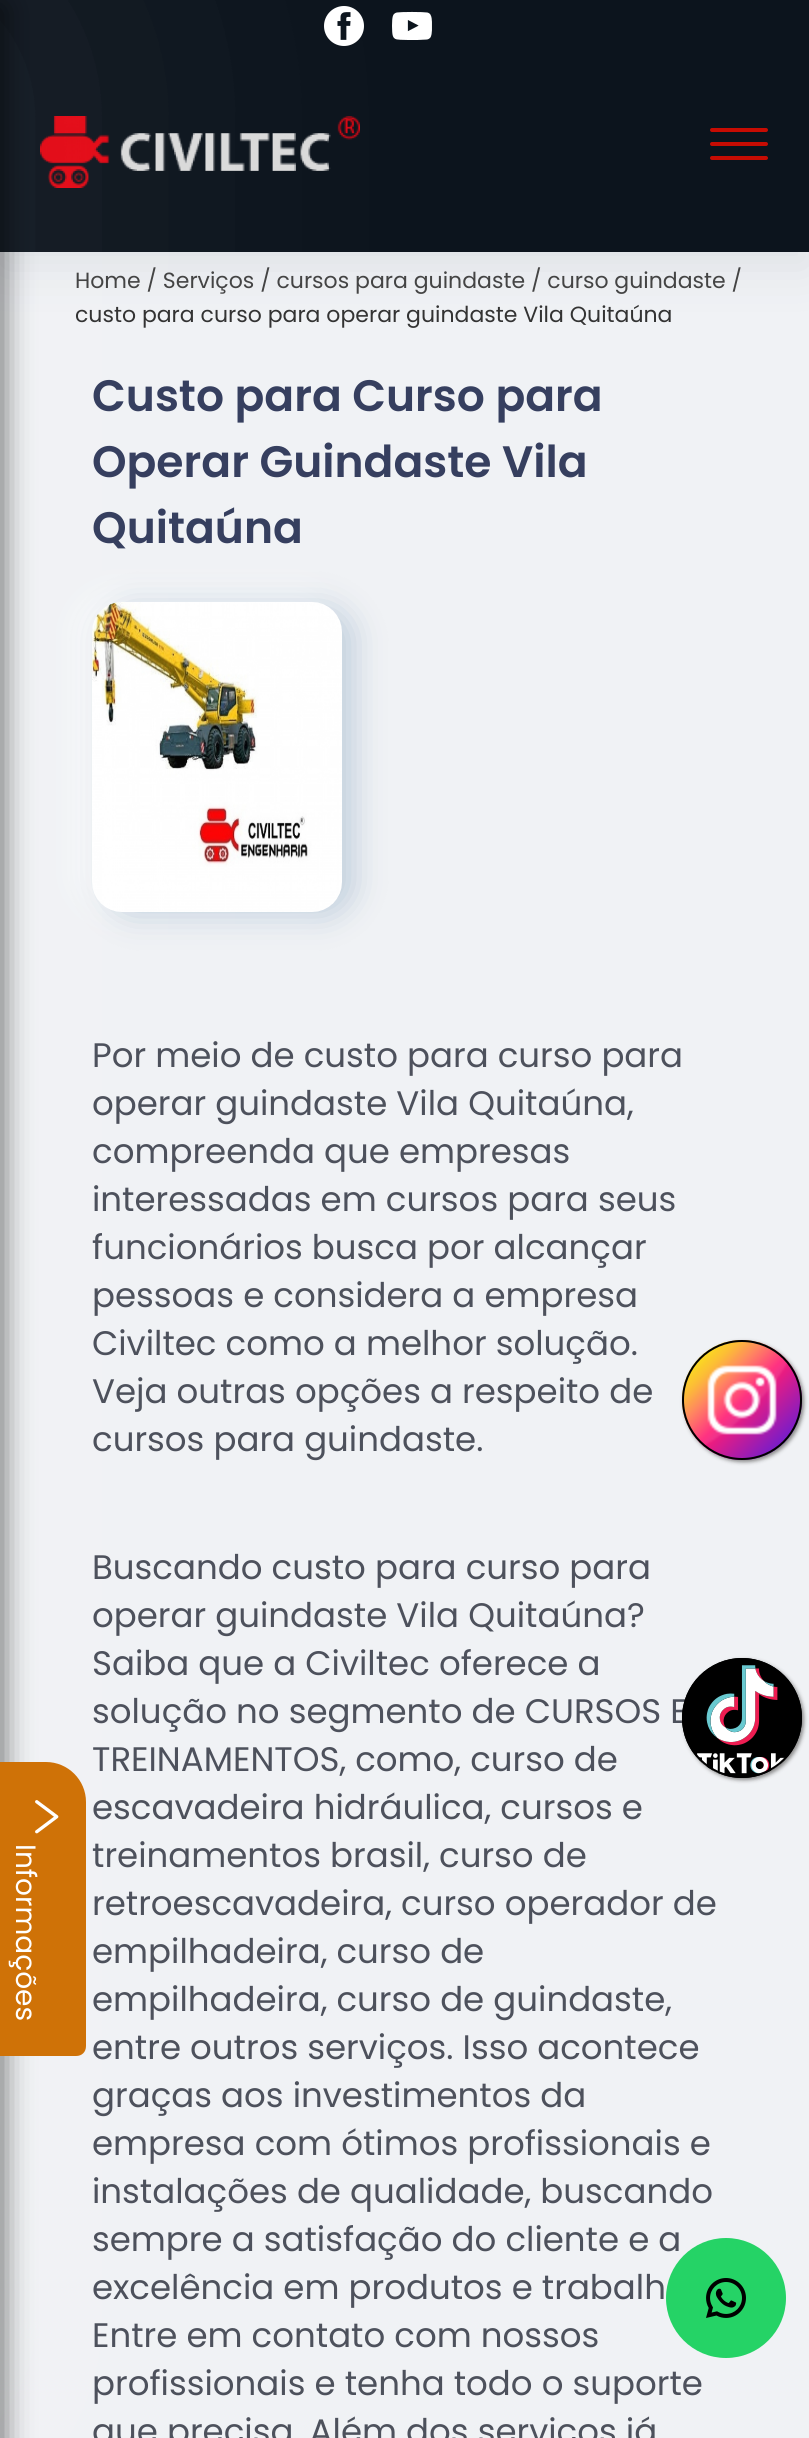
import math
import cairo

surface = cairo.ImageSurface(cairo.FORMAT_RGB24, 809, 2438)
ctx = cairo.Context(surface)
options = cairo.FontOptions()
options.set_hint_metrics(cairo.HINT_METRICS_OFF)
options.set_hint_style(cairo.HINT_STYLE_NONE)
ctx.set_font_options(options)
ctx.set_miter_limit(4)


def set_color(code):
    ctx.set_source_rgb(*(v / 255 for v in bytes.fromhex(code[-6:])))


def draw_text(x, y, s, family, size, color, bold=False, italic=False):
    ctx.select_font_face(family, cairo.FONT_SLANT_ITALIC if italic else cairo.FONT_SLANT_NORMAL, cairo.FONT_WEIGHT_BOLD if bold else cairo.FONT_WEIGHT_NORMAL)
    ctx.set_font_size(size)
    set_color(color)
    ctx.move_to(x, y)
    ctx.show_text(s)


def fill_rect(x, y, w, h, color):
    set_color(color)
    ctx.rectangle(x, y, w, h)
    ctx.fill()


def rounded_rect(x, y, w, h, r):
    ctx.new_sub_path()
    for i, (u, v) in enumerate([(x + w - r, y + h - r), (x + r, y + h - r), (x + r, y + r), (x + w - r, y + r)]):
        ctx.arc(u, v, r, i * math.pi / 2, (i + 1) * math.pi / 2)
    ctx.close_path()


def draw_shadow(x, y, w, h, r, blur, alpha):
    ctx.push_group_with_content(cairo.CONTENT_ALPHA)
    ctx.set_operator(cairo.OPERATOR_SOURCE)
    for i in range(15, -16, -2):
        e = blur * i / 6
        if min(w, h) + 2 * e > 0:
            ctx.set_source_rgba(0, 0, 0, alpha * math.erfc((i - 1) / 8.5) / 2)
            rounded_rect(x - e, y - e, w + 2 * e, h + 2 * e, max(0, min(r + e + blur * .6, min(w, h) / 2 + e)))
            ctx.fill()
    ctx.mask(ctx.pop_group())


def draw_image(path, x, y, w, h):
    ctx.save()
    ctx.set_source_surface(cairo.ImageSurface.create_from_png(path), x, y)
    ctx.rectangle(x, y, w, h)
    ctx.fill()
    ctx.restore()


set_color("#f0f2f5")
ctx.paint()
set_color("#959da5")
draw_shadow(0, 16, 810, 252, 0, 24, 0.2)
fill_rect(0, 0, 809, 252, "#0c141d")
draw_image("assets/img1.png", 324, 6, 40, 40)
draw_image("assets/img2.png", 392, 11, 40, 29)
draw_image("assets/img3.png", 40, 116, 320, 72)
set_color("#c70c03")
rounded_rect(710, 128, 58, 4, 2)
ctx.fill()
rounded_rect(710, 142, 58, 4, 2)
ctx.fill()
rounded_rect(710, 156, 58, 4, 2)
ctx.fill()
set_color("#ffffff")
draw_shadow(80, 598, 250, 310, 30, 16, 0.8)
set_color("#88a5bf")
draw_shadow(104, 606, 250, 310, 30, 16, 0.48)
draw_image("assets/img4.png", 92, 602, 250, 310)
set_color("#ffffff")
draw_shadow(-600, -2, 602, 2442, 0, 200, 0.1)
set_color("#000000")
draw_shadow(-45, 8, 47, 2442, 0, 15, 0.6)
draw_text(75, 288, "Home / Serviços / cursos para guindaste / curso guindaste /", "Poppins", 22, "#444444")
draw_text(75, 322, "custo para curso para operar guindaste Vila Quitaúna", "Poppins", 22, "#333333")
draw_text(92, 411, "Custo para Curso para", "Poppins SemiBold", 44, "#363f5f")
draw_text(92, 477, "Operar Guindaste Vila", "Poppins SemiBold", 44, "#363f5f")
draw_text(92, 543, "Quitaúna", "Poppins SemiBold", 44, "#363f5f")
draw_text(92, 1067, "Por meio de custo para curso para", "Poppins", 34, "#4d515c")
draw_text(92, 1115, "operar guindaste Vila Quitaúna,", "Poppins", 34, "#4d515c")
draw_text(92, 1163, "compreenda que empresas", "Poppins", 34, "#4d515c")
draw_text(92, 1211, "interessadas em cursos para seus", "Poppins", 34, "#4d515c")
draw_text(92, 1259, "funcionários busca por alcançar", "Poppins", 34, "#4d515c")
draw_text(92, 1307, "pessoas e considera a empresa", "Poppins", 34, "#4d515c")
draw_text(92, 1355, "Civiltec como a melhor solução.", "Poppins", 34, "#4d515c")
draw_text(92, 1403, "Veja outras opções a respeito de", "Poppins", 34, "#4d515c")
draw_text(92, 1451, "cursos para guindaste.", "Poppins", 34, "#4d515c")
draw_text(92, 1579, "Buscando custo para curso para", "Poppins", 34, "#4d515c")
draw_text(92, 1627, "operar guindaste Vila Quitaúna?", "Poppins", 34, "#4d515c")
draw_text(92, 1675, "Saiba que a Civiltec oferece a", "Poppins", 34, "#4d515c")
draw_text(92, 1723, "solução no segmento de CURSOS E", "Poppins", 34, "#4d515c")
draw_text(92, 1771, "TREINAMENTOS, como, curso de", "Poppins", 34, "#4d515c")
draw_text(92, 1819, "escavadeira hidráulica, cursos e", "Poppins", 34, "#4d515c")
draw_text(92, 1867, "treinamentos brasil, curso de", "Poppins", 34, "#4d515c")
draw_text(92, 1915, "retroescavadeira, curso operador de", "Poppins", 34, "#4d515c")
draw_text(92, 1963, "empilhadeira, curso de", "Poppins", 34, "#4d515c")
draw_text(92, 2011, "empilhadeira, curso de guindaste,", "Poppins", 34, "#4d515c")
draw_text(92, 2059, "entre outros serviços. Isso acontece", "Poppins", 34, "#4d515c")
draw_text(92, 2107, "graças aos investimentos da", "Poppins", 34, "#4d515c")
draw_text(92, 2155, "empresa com ótimos profissionais e", "Poppins", 34, "#4d515c")
draw_text(92, 2203, "instalações de qualidade, buscando", "Poppins", 34, "#4d515c")
draw_text(92, 2251, "sempre a satisfação do cliente e a", "Poppins", 34, "#4d515c")
draw_text(92, 2299, "excelência em produtos e trabalh", "Poppins", 34, "#4d515c")
draw_text(92, 2347, "Entre em contato com nossos", "Poppins", 34, "#4d515c")
draw_text(92, 2395, "profissionais e tenha todo o suporte", "Poppins", 34, "#4d515c")
draw_text(92, 2443, "que precisa. Além dos serviços já", "Poppins", 34, "#4d515c")
set_color("#888888")
draw_shadow(684, 1342, 120, 120, 60, 2, 1)
draw_image("assets/img5.png", 682, 1340, 120, 120)
ctx.arc(742, 1400, 59, 0, 2 * math.pi)
set_color("#000000")
ctx.stroke()
set_color("#888888")
draw_shadow(684, 1660, 120, 120, 60, 2, 1)
draw_image("assets/img6.png", 682, 1658, 120, 120)
ctx.arc(742, 1718, 59, 0, 2 * math.pi)
set_color("#000000")
ctx.stroke()
set_color("#cf7207")
ctx.new_path()
ctx.move_to(86, 1802)
ctx.line_to(86, 2046)
ctx.curve_to(86, 2052, 82, 2056, 76, 2056)
ctx.line_to(-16, 2056)
ctx.line_to(-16, 1762)
ctx.line_to(46, 1762)
ctx.curve_to(68, 1762, 86, 1780, 86, 1802)
ctx.close_path()
ctx.fill()
draw_image("assets/img7.png", 35, 1800, 24, 34)
ctx.save()
ctx.translate(16, 1844)
ctx.rotate(90 * math.pi / 180)
draw_text(0, 0, "Informações", "Poppins", 28, "#ffffff")
ctx.restore()
set_color("#25d366")
ctx.new_path()
ctx.arc(726, 2298, 60, 0, 2 * math.pi)
ctx.fill()
draw_image("assets/img8.png", 706, 2278, 40, 40)
surface.write_to_png("output.png")
